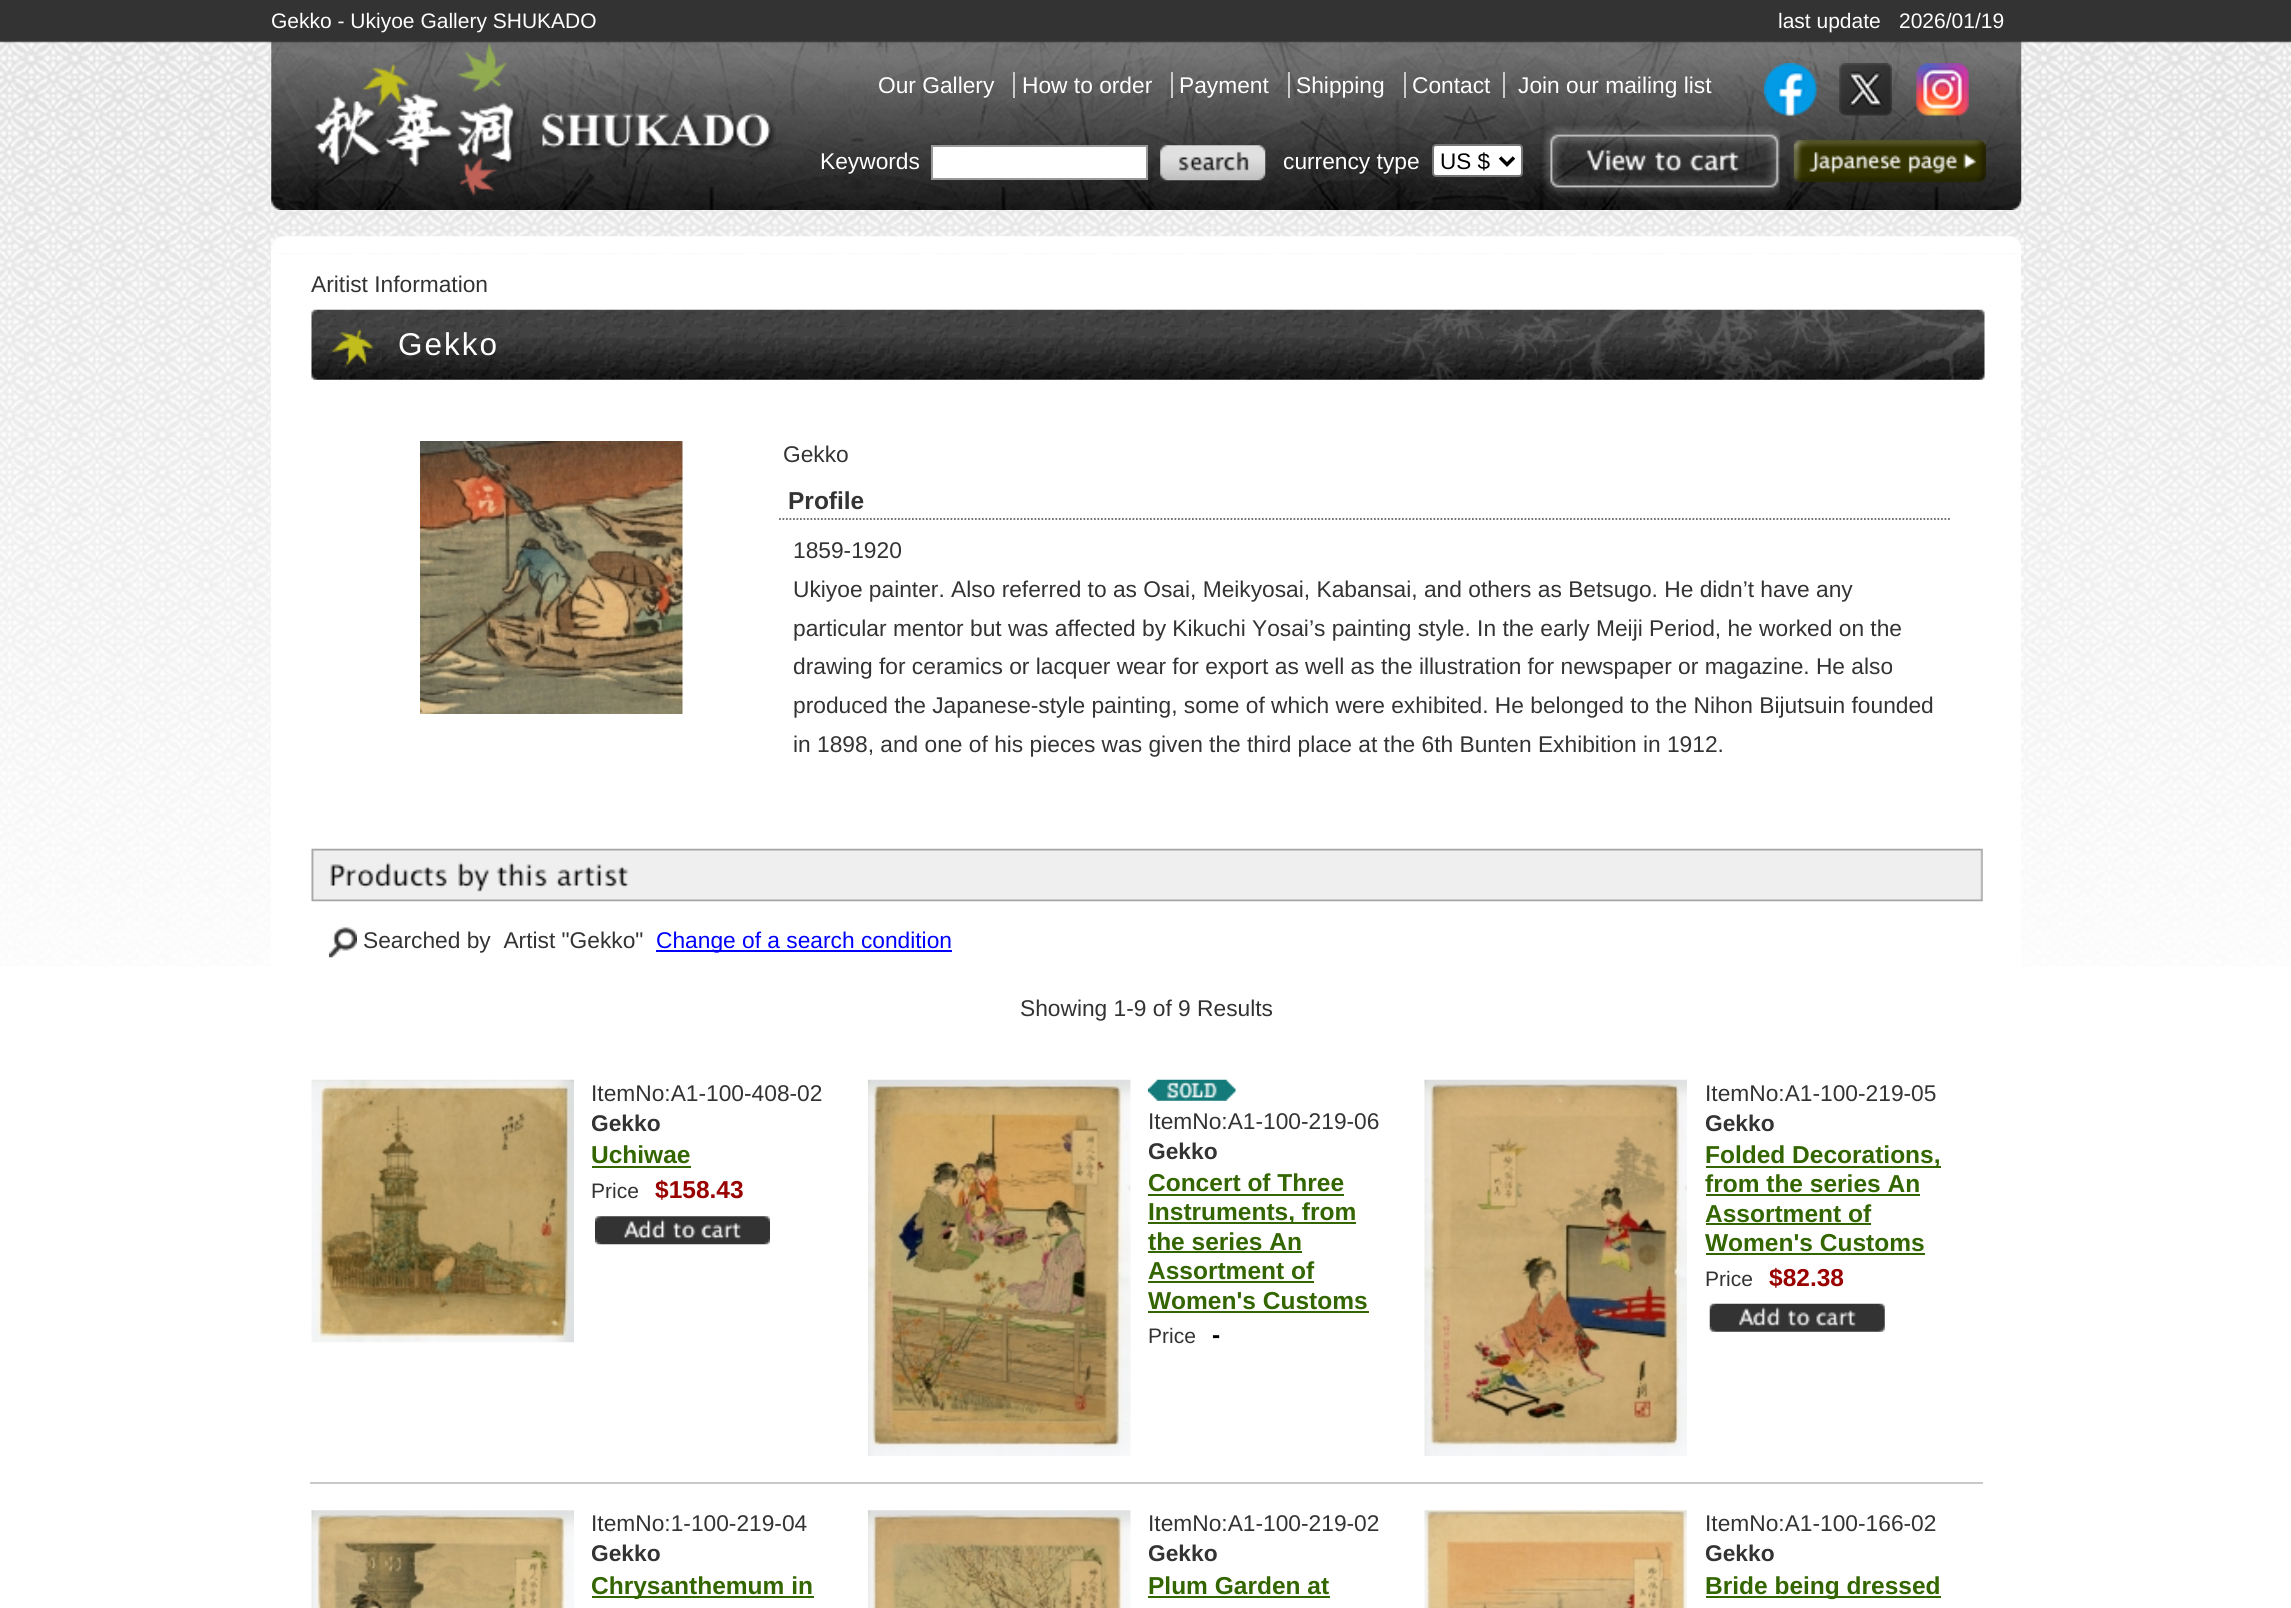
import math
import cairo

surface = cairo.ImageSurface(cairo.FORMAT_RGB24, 2291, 1608)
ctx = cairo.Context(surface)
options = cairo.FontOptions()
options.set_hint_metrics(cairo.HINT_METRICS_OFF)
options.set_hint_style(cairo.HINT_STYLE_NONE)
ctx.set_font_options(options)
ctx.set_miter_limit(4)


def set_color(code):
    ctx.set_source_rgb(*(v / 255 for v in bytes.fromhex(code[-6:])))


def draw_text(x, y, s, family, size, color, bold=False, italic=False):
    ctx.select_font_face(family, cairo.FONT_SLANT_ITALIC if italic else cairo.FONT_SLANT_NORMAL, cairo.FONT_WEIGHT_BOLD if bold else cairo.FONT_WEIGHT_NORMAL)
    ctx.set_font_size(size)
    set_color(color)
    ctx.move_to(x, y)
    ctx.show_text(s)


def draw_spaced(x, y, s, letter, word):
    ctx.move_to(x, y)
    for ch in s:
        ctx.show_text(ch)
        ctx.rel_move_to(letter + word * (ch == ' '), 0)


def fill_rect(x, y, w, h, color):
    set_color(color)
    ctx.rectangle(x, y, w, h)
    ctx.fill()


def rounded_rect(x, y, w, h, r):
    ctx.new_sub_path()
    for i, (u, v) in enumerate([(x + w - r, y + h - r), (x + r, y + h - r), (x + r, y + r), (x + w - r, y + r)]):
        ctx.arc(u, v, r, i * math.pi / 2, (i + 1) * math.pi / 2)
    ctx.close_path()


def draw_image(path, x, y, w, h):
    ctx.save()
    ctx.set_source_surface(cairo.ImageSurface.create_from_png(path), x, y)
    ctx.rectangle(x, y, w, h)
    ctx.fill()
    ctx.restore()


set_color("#ffffff")
ctx.paint()
draw_image("assets/img1.png", 0, 0, 2291, 966)
draw_image("assets/img2.png", 271, 41, 1751, 169)
draw_text(271, 28, "Gekko - Ukiyoe Gallery SHUKADO", "Liberation Sans", 21, "#ffffff")
draw_text(1778, 28, "last update", "Liberation Sans", 21, "#ffffff")
draw_text(1899, 28, "2026/01/19", "Liberation Sans", 21, "#ffffff")
draw_image("assets/img3.png", 314, 42, 462, 154)
draw_text(878, 93, "Our Gallery", "Liberation Sans", 22.75, "#ffffff")
fill_rect(1013, 72, 2, 26, "#cccccc")
draw_text(1022, 93, "How to order", "Liberation Sans", 22.75, "#ffffff")
fill_rect(1171, 72, 2, 26, "#cccccc")
draw_text(1179, 93, "Payment", "Liberation Sans", 22.75, "#ffffff")
fill_rect(1288, 72, 2, 26, "#cccccc")
draw_text(1296, 93, "Shipping", "Liberation Sans", 22.75, "#ffffff")
fill_rect(1404, 72, 2, 26, "#cccccc")
draw_text(1412, 93, "Contact", "Liberation Sans", 22.75, "#ffffff")
fill_rect(1503, 72, 2, 26, "#cccccc")
draw_text(1518, 93, "Join our mailing list", "Liberation Sans", 22.75, "#ffffff")
draw_image("assets/img4.png", 1764, 63, 53, 53)
draw_image("assets/img5.png", 1839, 63, 53, 53)
draw_image("assets/img6.png", 1916, 63, 53, 53)
draw_text(820, 169, "Keywords", "Liberation Sans", 22.75, "#ffffff")
ctx.rectangle(932, 146, 215, 33)
ctx.fill_preserve()
set_color("#999999")
ctx.stroke()
draw_image("assets/img7.png", 1160, 145, 106, 36)
draw_text(1283, 169, "currency type", "Liberation Sans", 22.75, "#ffffff")
rounded_rect(1433, 145, 89, 31, 3)
ctx.fill_preserve()
set_color("#767676")
ctx.stroke()
ctx.new_path()
ctx.move_to(1500, 157.5)
ctx.line_to(1507, 164.5)
ctx.line_to(1514, 157.5)
set_color("#000000")
ctx.set_line_width(3.5)
ctx.stroke()
draw_text(1440, 169, "US $", "Liberation Sans", 22.5, "#000000")
draw_image("assets/img8.png", 1541, 126, 239, 71)
draw_image("assets/img9.png", 1793, 140, 193, 42)
draw_image("assets/img10.png", 271, 236, 1751, 18)
fill_rect(271, 254, 1750, 712, "#ffffff")
draw_text(311, 292, "Aritist Information", "Liberation Sans", 22.75, "#333333")
draw_image("assets/img11.png", 311, 309, 1674, 71)
ctx.set_font_size(31.5)
set_color("#ffffff")
draw_spaced(398, 355, "Gekko", 2, 0)
draw_image("assets/img12.png", 420, 441, 263, 273)
draw_text(783, 462, "Gekko", "Liberation Sans", 22.75, "#333333")
ctx.new_path()
ctx.move_to(779, 519)
ctx.line_to(1951, 519)
set_color("#666666")
ctx.set_line_width(1.8)
ctx.set_dash([1.75, 1.75])
ctx.stroke()
draw_text(788, 509, "Profile", "Liberation Sans", 24.5, "#333333", bold=True)
draw_text(793, 558, "1859-1920", "Liberation Sans", 22.75, "#333333")
draw_text(793, 597, "Ukiyoe painter. Also referred to as Osai, Meikyosai, Kabansai, and others as Betsugo. He didn’t have any", "Liberation Sans", 22.75, "#333333")
draw_text(793, 636, "particular mentor but was affected by Kikuchi Yosai’s painting style. In the early Meiji Period, he worked on the", "Liberation Sans", 22.75, "#333333")
draw_text(793, 674, "drawing for ceramics or lacquer wear for export as well as the illustration for newspaper or magazine. He also", "Liberation Sans", 22.75, "#333333")
draw_text(793, 713, "produced the Japanese-style painting, some of which were exhibited. He belonged to the Nihon Bijutsuin founded", "Liberation Sans", 22.75, "#333333")
draw_text(793, 752, "in 1898, and one of his pieces was given the third place at the 6th Bunten Exhibition in 1912.", "Liberation Sans", 22.75, "#333333")
draw_image("assets/img13.png", 311, 848, 1672, 54)
draw_image("assets/img14.png", 329, 927, 28, 31)
draw_text(363, 948, "Searched by  Artist \"Gekko\"", "Liberation Sans", 22.75, "#333333")
fill_rect(656, 950, 296, 2, "#0000ff")
draw_text(656, 948, "Change of a search condition", "Liberation Sans", 22.75, "#0000ff")
draw_text(1020, 1016, "Showing 1-9 of 9 Results", "Liberation Sans", 22.75, "#333333")
draw_image("assets/img15.png", 311, 1079, 263, 264)
draw_text(591, 1101, "ItemNo:A1-100-408-02", "Liberation Sans", 22.75, "#333333")
draw_text(591, 1131, "Gekko", "Liberation Sans", 22.75, "#333333", bold=True)
draw_text(591, 1163, "Uchiwae", "Liberation Sans", 24.5, "#336600", bold=True)
fill_rect(592, 1166, 99, 2, "#336600")
draw_text(591, 1198, "Price", "Liberation Sans", 21, "#333333")
draw_text(655, 1198, "$158.43", "Liberation Sans", 24.5, "#990000", bold=True)
draw_image("assets/img16.png", 595, 1216, 175, 29)
draw_image("assets/img17.png", 868, 1079, 263, 377)
draw_image("assets/img18.png", 1148, 1079, 88, 22)
draw_text(1148, 1129, "ItemNo:A1-100-219-06", "Liberation Sans", 22.75, "#333333")
draw_text(1148, 1159, "Gekko", "Liberation Sans", 22.75, "#333333", bold=True)
draw_text(1148, 1191, "Concert of Three", "Liberation Sans", 24.5, "#336600", bold=True)
fill_rect(1148, 1194, 196, 2, "#336600")
fill_rect(1148, 1222, 208, 2, "#336600")
draw_text(1148, 1220, "Instruments, from", "Liberation Sans", 24.5, "#336600", bold=True)
draw_text(1148, 1250, "the series An", "Liberation Sans", 24.5, "#336600", bold=True)
fill_rect(1148, 1251, 154, 2, "#336600")
draw_text(1148, 1279, "Assortment of", "Liberation Sans", 24.5, "#336600", bold=True)
fill_rect(1148, 1281, 166, 2, "#336600")
draw_text(1148, 1309, "Women's Customs", "Liberation Sans", 24.5, "#336600", bold=True)
fill_rect(1148, 1311, 221, 2, "#336600")
draw_text(1148, 1343, "Price", "Liberation Sans", 21, "#333333")
draw_text(1212, 1343, "-", "Liberation Sans", 24.5, "#000000", bold=True)
fill_rect(310, 1482, 1673, 2, "#c9c9c9")
draw_image("assets/img19.png", 1424, 1079, 263, 377)
draw_text(1705, 1101, "ItemNo:A1-100-219-05", "Liberation Sans", 22.75, "#333333")
draw_text(1705, 1131, "Gekko", "Liberation Sans", 22.75, "#333333", bold=True)
fill_rect(1706, 1166, 235, 2, "#336600")
draw_text(1705, 1163, "Folded Decorations,", "Liberation Sans", 24.5, "#336600", bold=True)
draw_text(1705, 1192, "from the series An", "Liberation Sans", 24.5, "#336600", bold=True)
fill_rect(1706, 1194, 214, 2, "#336600")
draw_text(1705, 1222, "Assortment of", "Liberation Sans", 24.5, "#336600", bold=True)
fill_rect(1706, 1223, 165, 2, "#336600")
draw_text(1705, 1251, "Women's Customs", "Liberation Sans", 24.5, "#336600", bold=True)
fill_rect(1706, 1253, 219, 2, "#336600")
draw_text(1705, 1286, "Price", "Liberation Sans", 21, "#333333")
draw_text(1769, 1286, "$82.38", "Liberation Sans", 24.5, "#990000", bold=True)
draw_image("assets/img20.png", 1709, 1303, 176, 29)
draw_image("assets/img21.png", 311, 1510, 263, 98)
draw_text(591, 1531, "ItemNo:1-100-219-04", "Liberation Sans", 22.75, "#333333")
draw_text(591, 1561, "Gekko", "Liberation Sans", 22.75, "#333333", bold=True)
fill_rect(592, 1596, 222, 2, "#336600")
draw_text(591, 1594, "Chrysanthemum in", "Liberation Sans", 24.5, "#336600", bold=True)
draw_image("assets/img22.png", 868, 1510, 263, 98)
draw_text(1148, 1531, "ItemNo:A1-100-219-02", "Liberation Sans", 22.75, "#333333")
draw_text(1148, 1561, "Gekko", "Liberation Sans", 22.75, "#333333", bold=True)
draw_text(1148, 1594, "Plum Garden at", "Liberation Sans", 24.5, "#336600", bold=True)
fill_rect(1148, 1596, 182, 2, "#336600")
draw_image("assets/img23.png", 1424, 1510, 263, 98)
draw_text(1705, 1531, "ItemNo:A1-100-166-02", "Liberation Sans", 22.75, "#333333")
draw_text(1705, 1561, "Gekko", "Liberation Sans", 22.75, "#333333", bold=True)
fill_rect(1706, 1596, 235, 2, "#336600")
draw_text(1705, 1594, "Bride being dressed", "Liberation Sans", 24.5, "#336600", bold=True)
surface.write_to_png("output.png")
